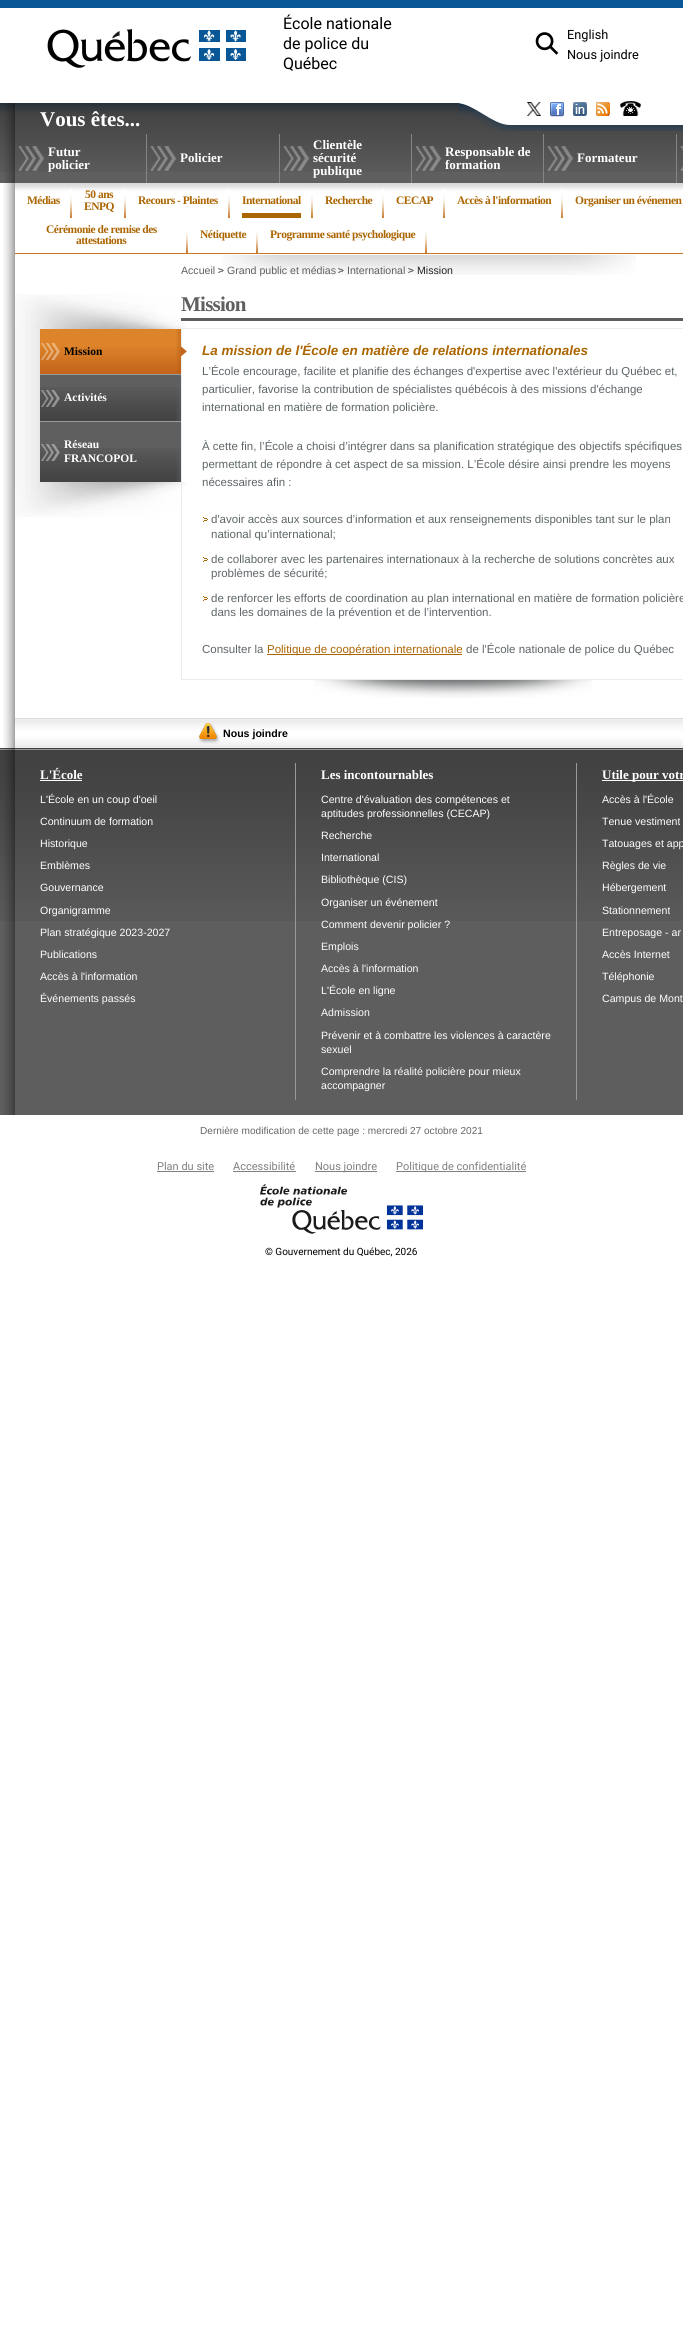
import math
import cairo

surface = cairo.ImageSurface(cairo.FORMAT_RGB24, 683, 2341)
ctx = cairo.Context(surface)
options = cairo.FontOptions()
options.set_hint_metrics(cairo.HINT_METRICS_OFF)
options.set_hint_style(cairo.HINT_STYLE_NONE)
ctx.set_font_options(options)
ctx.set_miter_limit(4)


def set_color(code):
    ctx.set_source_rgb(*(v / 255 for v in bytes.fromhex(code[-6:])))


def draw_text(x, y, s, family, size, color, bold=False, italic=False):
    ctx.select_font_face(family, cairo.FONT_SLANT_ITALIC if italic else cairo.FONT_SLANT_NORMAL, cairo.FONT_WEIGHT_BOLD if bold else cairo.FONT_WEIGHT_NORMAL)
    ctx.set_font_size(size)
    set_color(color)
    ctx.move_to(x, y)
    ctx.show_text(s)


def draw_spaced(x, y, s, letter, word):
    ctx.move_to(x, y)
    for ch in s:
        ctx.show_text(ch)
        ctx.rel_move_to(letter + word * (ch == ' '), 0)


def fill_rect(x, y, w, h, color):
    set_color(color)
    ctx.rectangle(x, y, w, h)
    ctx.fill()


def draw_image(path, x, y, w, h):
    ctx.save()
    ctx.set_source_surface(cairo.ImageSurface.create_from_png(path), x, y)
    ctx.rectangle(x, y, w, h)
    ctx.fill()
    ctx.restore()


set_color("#ffffff")
ctx.paint()
fill_rect(0, 0, 683, 8, "#095797")
draw_image("assets/img1.png", 47, 28, 199, 40)
draw_text(283, 29, "École nationale", "Roboto", 16, "#000000")
draw_text(283, 49, "de police du", "Roboto", 16, "#000000")
draw_text(283, 69, "Québec", "Roboto", 16, "#000000")
draw_image("assets/img2.png", 535, 32, 24, 23)
draw_text(567, 39, "English", "Roboto", 12.75, "#000000")
draw_text(567, 59, "Nous joindre", "Roboto", 12.75, "#000000")
fill_rect(0, 172, 683, 11, "#5f5f5f")
draw_image("assets/img3.png", 0, 103, 15, 69)
draw_image("assets/img4.png", 4, 103, 11, 80)
draw_image("assets/img11.png", 15, 103, 668, 69)
draw_image("assets/img5.png", 459, 103, 224, 28)
draw_image("assets/img6.png", 527, 102, 14, 14)
draw_image("assets/img7.png", 550, 102, 14, 15)
draw_image("assets/img8.png", 573, 102, 14, 14)
draw_image("assets/img9.png", 596, 102, 14, 14)
draw_image("assets/img10.png", 620, 101, 21, 15)
draw_text(40, 126, "Vous êtes...", "Liberation Serif", 21, "#ffffff", bold=True)
draw_image("assets/img12.png", 18, 146, 27, 25)
fill_rect(146, 134, 1, 49, "#858585")
draw_text(48, 156, "Futur", "Liberation Serif", 13, "#ffffff", bold=True)
draw_text(48, 169, "policier", "Liberation Serif", 13, "#ffffff", bold=True)
draw_image("assets/img12.png", 150, 146, 27, 25)
fill_rect(279, 134, 1, 49, "#858585")
draw_text(180, 162, "Policier", "Liberation Serif", 13, "#ffffff", bold=True)
draw_image("assets/img12.png", 283, 146, 27, 25)
fill_rect(411, 134, 1, 49, "#858585")
draw_text(313, 149, "Clientèle", "Liberation Serif", 13, "#ffffff", bold=True)
draw_text(313, 162, "sécurité", "Liberation Serif", 13, "#ffffff", bold=True)
draw_text(313, 175, "publique", "Liberation Serif", 13, "#ffffff", bold=True)
draw_image("assets/img12.png", 415, 146, 27, 25)
fill_rect(543, 134, 1, 49, "#858585")
draw_text(445, 156, "Responsable de", "Liberation Serif", 13, "#ffffff", bold=True)
draw_text(445, 169, "formation", "Liberation Serif", 13, "#ffffff", bold=True)
draw_image("assets/img12.png", 547, 146, 27, 25)
fill_rect(676, 134, 1, 49, "#858585")
draw_text(577, 162, "Formateur", "Liberation Serif", 13, "#ffffff", bold=True)
draw_image("assets/img13.png", 680, 146, 3, 25)
draw_image("assets/img14.png", 3, 183, 12, 535)
draw_image("assets/img15.png", 15, 183, 668, 8)
fill_rect(15, 253, 668, 1, "#c87623")
draw_image("assets/img16.png", 70, 189, 2, 29)
ctx.set_font_size(11.5)
set_color("#ab6501")
draw_spaced(27, 204, "Médias", -0.5, 0)
draw_image("assets/img16.png", 124, 189, 2, 29)
draw_spaced(85, 198, "50 ans", -0.5, 0)
draw_spaced(84, 210, "ENPQ", -0.5, 0)
draw_image("assets/img16.png", 228, 189, 2, 29)
draw_spaced(138, 204, "Recours - Plaintes", -0.5, 0)
draw_image("assets/img16.png", 311, 189, 2, 29)
fill_rect(242, 213, 59, 5, "#ab6501")
draw_spaced(242, 204, "International", -0.5, 0)
draw_image("assets/img16.png", 382, 189, 2, 29)
draw_spaced(325, 204, "Recherche", -0.5, 0)
draw_image("assets/img16.png", 443, 189, 2, 29)
draw_spaced(396, 204, "CECAP", -0.5, 0)
draw_image("assets/img16.png", 561, 189, 2, 29)
draw_spaced(457, 204, "Accès à l'information", -0.5, 0)
draw_spaced(575, 204, "Organiser un événemen", -0.5, 0)
draw_image("assets/img17.png", 186, 230, 2, 23)
draw_spaced(46, 233, "Cérémonie de remise des", -0.5, 0)
draw_spaced(76, 244, "attestations", -0.5, 0)
draw_image("assets/img17.png", 256, 230, 2, 23)
draw_spaced(200, 238, "Nétiquette", -0.5, 0)
draw_image("assets/img17.png", 425, 230, 2, 23)
draw_spaced(270, 238, "Programme santé psychologique", -0.5, 0)
draw_image("assets/img18.png", 222, 255, 414, 20)
draw_image("assets/img19.png", 15, 294, 171, 35)
draw_image("assets/img20.png", 15, 329, 25, 153)
fill_rect(40, 329, 141, 18, "#dd842a")
draw_image("assets/img21.png", 40, 347, 141, 27)
fill_rect(40, 374, 141, 1, "#9a9a9a")
draw_image("assets/img22.png", 41, 343, 19, 17)
draw_text(64, 355, "Mission", "Liberation Serif", 11.5, "#000000", bold=True)
draw_image("assets/img23.png", 176, 329, 5, 45)
draw_image("assets/img30.png", 15, 482, 171, 35)
ctx.rectangle(181.5, 328.5, 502, 351)
set_color("#ebeded")
ctx.set_line_width(1)
ctx.stroke()
draw_image("assets/img24.png", 181, 346, 6, 11)
fill_rect(40, 375, 141, 12, "#5f5f5f")
draw_image("assets/img25.png", 40, 387, 141, 34)
fill_rect(40, 421, 141, 1, "#9a9a9a")
draw_image("assets/img26.png", 41, 390, 19, 17)
draw_text(64, 401, "Activités", "Liberation Serif", 11.5, "#ffffff", bold=True)
draw_image("assets/img27.png", 176, 375, 5, 46)
fill_rect(40, 422, 141, 26, "#5f5f5f")
draw_image("assets/img25.png", 40, 448, 141, 34)
draw_image("assets/img28.png", 41, 444, 19, 17)
draw_text(64, 448, "Réseau", "Liberation Serif", 11.5, "#ffffff", bold=True)
draw_text(64, 462, "FRANCOPOL", "Liberation Serif", 11.5, "#ffffff", bold=True)
draw_image("assets/img29.png", 176, 422, 5, 60)
draw_image("assets/img31.png", 313, 680, 279, 18)
draw_text(181, 274, "Accueil", "Liberation Sans", 10.6, "#5f5f5f")
draw_image("assets/img32.png", 218, 268, 6, 5)
draw_text(227, 274, "Grand public et médias", "Liberation Sans", 10.6, "#5f5f5f")
draw_image("assets/img33.png", 338, 268, 6, 5)
draw_text(347, 274, "International", "Liberation Sans", 10.6, "#5f5f5f")
draw_image("assets/img33.png", 408, 268, 6, 5)
draw_text(417, 274, "Mission", "Liberation Sans", 10.6, "#222222")
fill_rect(181, 318, 502, 3, "#5f5f5f")
ctx.select_font_face("Liberation Serif", cairo.FONT_SLANT_NORMAL, cairo.FONT_WEIGHT_BOLD)
ctx.set_font_size(21)
draw_spaced(181, 311, "Mission", -0.75, 0)
draw_text(202, 355, "La mission de l'École en matière de relations internationales", "Liberation Sans", 13.45, "#ab6501", bold=True, italic=True)
draw_text(202, 375, "L’École encourage, facilite et planifie des échanges d'expertise avec l'extérieur du Québec et,", "Liberation Sans", 11.5, "#5e6568")
draw_text(202, 393, "particulier, favorise la contribution de spécialistes québécois à des missions d'échange", "Liberation Sans", 11.5, "#5e6568")
draw_text(202, 411, "international en matière de formation policière.", "Liberation Sans", 11.5, "#5e6568")
draw_text(202, 450, "À cette fin, l’École a choisi d’intégrer dans sa planification stratégique des objectifs spécifiques", "Liberation Sans", 11.5, "#5e6568")
draw_text(202, 468, "permettant de répondre à cet aspect de sa mission. L’École désire ainsi prendre les moyens", "Liberation Sans", 11.5, "#5e6568")
draw_text(202, 486, "nécessaires afin :", "Liberation Sans", 11.5, "#5e6568")
draw_image("assets/img34.png", 203, 517, 5, 5)
draw_text(211, 523, "d'avoir accès aux sources d’information et aux renseignements disponibles tant sur le plan", "Liberation Sans", 11.5, "#5e6568")
draw_text(211, 538, "national qu’international;", "Liberation Sans", 11.5, "#5e6568")
draw_image("assets/img34.png", 203, 557, 5, 5)
draw_text(211, 563, "de collaborer avec les partenaires internationaux à la recherche de solutions concrètes aux", "Liberation Sans", 11.5, "#5e6568")
draw_text(211, 577, "problèmes de sécurité;", "Liberation Sans", 11.5, "#5e6568")
draw_image("assets/img34.png", 203, 596, 5, 5)
draw_text(211, 602, "de renforcer les efforts de coordination au plan international en matière de formation policière", "Liberation Sans", 11.5, "#5e6568")
draw_text(211, 616, "dans les domaines de la prévention et de l’intervention.", "Liberation Sans", 11.5, "#5e6568")
draw_text(202, 653, "Consulter la", "Liberation Sans", 11.5, "#5e6568")
fill_rect(267, 654, 195, 1, "#ab6501")
draw_text(267, 653, "Politique de coopération internationale", "Liberation Sans", 11.5, "#ab6501")
draw_text(466, 653, "de l'École nationale de police du Québec", "Liberation Sans", 11.5, "#5e6568")
draw_image("assets/img35.png", 3, 718, 12, 30)
fill_rect(15, 719, 668, 29, "#ededed")
draw_image("assets/img36.png", 15, 723, 668, 22)
fill_rect(15, 718, 668, 1, "#dcdcdc")
draw_image("assets/img37.png", 198, 723, 22, 21)
draw_text(223, 737, "Nous joindre", "Liberation Sans", 10.6, "#000000", bold=True)
fill_rect(0, 921, 683, 194, "#5e5e5e")
draw_image("assets/img38.png", 0, 748, 683, 173)
draw_image("assets/img39.png", 3, 748, 12, 367)
fill_rect(295, 763, 1, 337, "#999999")
draw_text(40, 779, "L'École", "Liberation Serif", 13, "#ffffff", bold=True)
fill_rect(40, 780, 42, 1, "#ffffff")
draw_text(40, 803, "L'École en un coup d'oeil", "Liberation Sans", 10.6, "#ffffff")
draw_text(40, 825, "Continuum de formation", "Liberation Sans", 10.6, "#ffffff")
draw_text(40, 847, "Historique", "Liberation Sans", 10.6, "#ffffff")
draw_text(40, 869, "Emblèmes", "Liberation Sans", 10.6, "#ffffff")
draw_text(40, 891, "Gouvernance", "Liberation Sans", 10.6, "#ffffff")
draw_text(40, 914, "Organigramme", "Liberation Sans", 10.6, "#ffffff")
draw_text(40, 936, "Plan stratégique 2023-2027", "Liberation Sans", 10.6, "#ffffff")
draw_text(40, 958, "Publications", "Liberation Sans", 10.6, "#ffffff")
draw_text(40, 980, "Accès à l'information", "Liberation Sans", 10.6, "#ffffff")
draw_text(40, 1002, "Événements passés", "Liberation Sans", 10.6, "#ffffff")
fill_rect(576, 763, 1, 337, "#999999")
draw_text(321, 779, "Les incontournables", "Liberation Serif", 13, "#ffffff", bold=True)
draw_text(321, 803, "Centre d'évaluation des compétences et", "Liberation Sans", 10.6, "#ffffff")
draw_text(321, 817, "aptitudes professionnelles (CECAP)", "Liberation Sans", 10.6, "#ffffff")
draw_text(321, 839, "Recherche", "Liberation Sans", 10.6, "#ffffff")
draw_text(321, 861, "International", "Liberation Sans", 10.6, "#ffffff")
draw_text(321, 883, "Bibliothèque (CIS)", "Liberation Sans", 10.6, "#ffffff")
draw_text(321, 906, "Organiser un événement", "Liberation Sans", 10.6, "#ffffff")
draw_text(321, 928, "Comment devenir policier ?", "Liberation Sans", 10.6, "#ffffff")
draw_text(321, 950, "Emplois", "Liberation Sans", 10.6, "#ffffff")
draw_text(321, 972, "Accès à l'information", "Liberation Sans", 10.6, "#ffffff")
draw_text(321, 994, "L'École en ligne", "Liberation Sans", 10.6, "#ffffff")
draw_text(321, 1016, "Admission", "Liberation Sans", 10.6, "#ffffff")
draw_text(321, 1039, "Prévenir et à combattre les violences à caractère", "Liberation Sans", 10.6, "#ffffff")
draw_text(321, 1053, "sexuel", "Liberation Sans", 10.6, "#ffffff")
draw_text(321, 1075, "Comprendre la réalité policière pour mieux", "Liberation Sans", 10.6, "#ffffff")
draw_text(321, 1089, "accompagner", "Liberation Sans", 10.6, "#ffffff")
fill_rect(602, 780, 81, 1, "#ffffff")
draw_text(602, 779, "Utile pour votr", "Liberation Serif", 13, "#ffffff", bold=True)
draw_text(602, 803, "Accès à l'École", "Liberation Sans", 10.6, "#ffffff")
draw_text(602, 825, "Tenue vestiment", "Liberation Sans", 10.6, "#ffffff")
draw_text(602, 847, "Tatouages et app", "Liberation Sans", 10.6, "#ffffff")
draw_text(602, 869, "Règles de vie", "Liberation Sans", 10.6, "#ffffff")
draw_text(602, 891, "Hébergement", "Liberation Sans", 10.6, "#ffffff")
draw_text(602, 914, "Stationnement", "Liberation Sans", 10.6, "#ffffff")
draw_text(602, 936, "Entreposage - ar", "Liberation Sans", 10.6, "#ffffff")
draw_text(602, 958, "Accès Internet", "Liberation Sans", 10.6, "#ffffff")
draw_text(602, 980, "Téléphonie", "Liberation Sans", 10.6, "#ffffff")
draw_text(602, 1002, "Campus de Mont", "Liberation Sans", 10.6, "#ffffff")
draw_text(200, 1134, "Dernière modification de cette page : mercredi 27 octobre 2021", "Liberation Sans", 10.1, "#666666")
draw_text(157, 1170, "Plan du site", "Roboto", 11, "#808080")
fill_rect(157, 1171, 57, 1, "#808080")
draw_text(233, 1170, "Accessibilité", "Roboto", 11, "#808080")
fill_rect(233, 1171, 63, 1, "#808080")
fill_rect(315, 1171, 62, 1, "#808080")
draw_text(315, 1170, "Nous joindre", "Roboto", 11, "#808080")
fill_rect(396, 1171, 130, 1, "#808080")
draw_text(396, 1170, "Politique de confidentialité", "Roboto", 11, "#808080")
draw_image("assets/img40.png", 260, 1184, 163, 50)
draw_text(265, 1255, "© Gouvernement du Québec, 2026", "Roboto", 10, "#000000")
surface.write_to_png("output.png")
